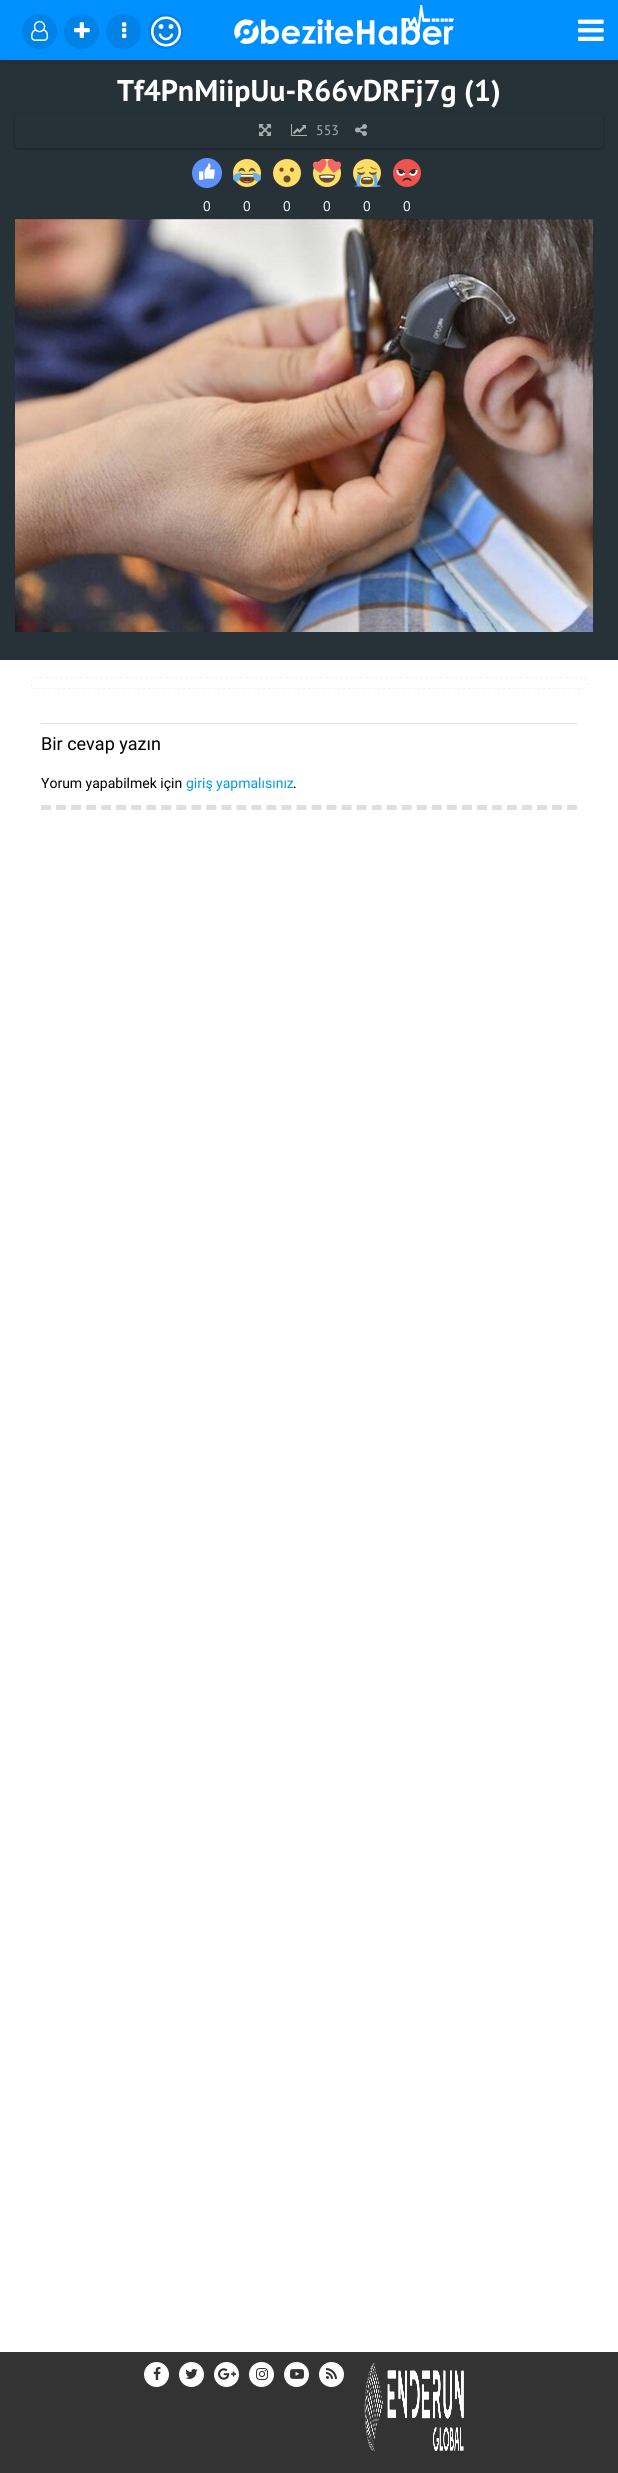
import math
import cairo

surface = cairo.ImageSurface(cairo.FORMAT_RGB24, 618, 2473)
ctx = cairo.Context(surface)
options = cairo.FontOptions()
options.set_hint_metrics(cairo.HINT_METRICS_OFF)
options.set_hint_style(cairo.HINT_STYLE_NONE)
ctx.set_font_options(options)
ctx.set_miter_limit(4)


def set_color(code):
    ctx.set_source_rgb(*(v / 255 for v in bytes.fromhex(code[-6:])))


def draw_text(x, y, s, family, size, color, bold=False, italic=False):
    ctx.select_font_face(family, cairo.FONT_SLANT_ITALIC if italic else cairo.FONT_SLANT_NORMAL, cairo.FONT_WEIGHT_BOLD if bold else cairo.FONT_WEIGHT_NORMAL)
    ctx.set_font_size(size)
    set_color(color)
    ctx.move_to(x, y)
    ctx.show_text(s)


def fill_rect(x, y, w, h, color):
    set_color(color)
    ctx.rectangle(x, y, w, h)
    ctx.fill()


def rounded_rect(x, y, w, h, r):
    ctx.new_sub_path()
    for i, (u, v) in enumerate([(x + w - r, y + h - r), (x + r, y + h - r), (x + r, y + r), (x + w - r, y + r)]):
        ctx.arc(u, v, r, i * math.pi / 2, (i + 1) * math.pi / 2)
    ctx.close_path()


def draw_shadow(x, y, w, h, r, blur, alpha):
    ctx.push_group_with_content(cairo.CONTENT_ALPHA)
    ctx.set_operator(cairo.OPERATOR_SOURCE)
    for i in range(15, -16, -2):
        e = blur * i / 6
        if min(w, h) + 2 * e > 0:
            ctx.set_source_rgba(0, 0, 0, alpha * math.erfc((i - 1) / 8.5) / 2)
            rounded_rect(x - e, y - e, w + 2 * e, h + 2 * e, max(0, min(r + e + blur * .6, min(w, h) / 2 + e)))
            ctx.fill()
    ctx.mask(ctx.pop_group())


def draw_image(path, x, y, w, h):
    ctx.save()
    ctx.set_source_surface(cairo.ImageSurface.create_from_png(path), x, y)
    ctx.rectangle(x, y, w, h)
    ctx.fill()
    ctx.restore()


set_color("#ffffff")
ctx.paint()
fill_rect(0, 60, 618, 600, "#263238")
set_color("#000000")
draw_shadow(0, 2, 618, 60, 0, 1.5, 0.1)
fill_rect(0, 0, 618, 60, "#0090ff")
set_color("#0082e6")
ctx.arc(39.5, 31.5, 17.5, 0, 2 * math.pi)
ctx.fill()
draw_image("assets/img1.png", 31, 20, 18, 21)
ctx.arc(81.5, 31.5, 17.5, 0, 2 * math.pi)
ctx.fill()
draw_image("assets/img2.png", 74, 22, 16, 16)
ctx.arc(123.5, 31.5, 17.5, 0, 2 * math.pi)
ctx.fill()
draw_image("assets/img3.png", 122, 22, 5, 16)
ctx.arc(165.5, 31.5, 17.5, 0, 2 * math.pi)
ctx.fill()
draw_image("assets/img4.png", 151, 16, 30, 31)
draw_image("assets/img5.png", 234, 5, 220, 40)
draw_image("assets/img6.png", 578, 19, 26, 22)
draw_text(117, 101, "Tf4PnMiipUu-R66vDRFj7g (1)", "PT Sans", 30, "#ffffff", bold=True)
set_color("#000000")
draw_shadow(15, 114, 588, 35, 3, 1.5, 0.38)
set_color("#263238")
rounded_rect(15, 113, 588, 35, 3)
ctx.fill()
draw_image("assets/img7.png", 259, 124, 12, 12)
draw_image("assets/img8.png", 291, 124, 16, 12)
draw_text(316, 135, "553", "PT Sans", 14, "#a8adaf")
draw_image("assets/img9.png", 355, 124, 12, 12)
draw_image("assets/img10.png", 192, 158, 30, 30)
draw_text(203, 211, "0", "PT Sans", 14, "#ffffff")
draw_image("assets/img11.png", 233, 159, 28, 28)
draw_text(243, 211, "0", "PT Sans", 14, "#ffffff")
set_color("#ffdd67")
ctx.new_path()
ctx.arc(287, 173, 14, 0, 2 * math.pi)
ctx.fill()
set_color("#664e27")
ctx.arc(281.5, 169.7, 2.1, 0, 2 * math.pi)
ctx.fill()
ctx.arc(292, 169.7, 2.1, 0, 2 * math.pi)
ctx.fill()
ctx.arc(287, 179, 3.5, 0, 2 * math.pi)
ctx.fill()
draw_text(283, 211, "0", "PT Sans", 14, "#ffffff")
draw_image("assets/img12.png", 312, 158, 29, 29)
draw_text(323, 211, "0", "PT Sans", 14, "#ffffff")
draw_image("assets/img13.png", 353, 159, 28, 28)
draw_text(363, 211, "0", "PT Sans", 14, "#ffffff")
draw_image("assets/img14.png", 393, 159, 28, 28)
draw_text(403, 211, "0", "PT Sans", 14, "#ffffff")
draw_image("assets/img15.png", 15, 219, 578, 413)
ctx.new_path()
ctx.move_to(35, 677.5)
ctx.line_to(583.5, 677.5)
ctx.curve_to(588, 678.5, 588, 688.5, 583, 688.5)
ctx.line_to(35, 688.5)
ctx.curve_to(34, 688.5, 32.5, 688, 32, 687)
ctx.curve_to(30.5, 684.5, 31, 677.5, 35, 677.5)
ctx.close_path()
set_color("#f1f1f1")
ctx.set_line_width(1)
ctx.set_dash([3, 2])
ctx.stroke()
fill_rect(41, 723, 536, 1, "#dfdfdf")
ctx.new_path()
ctx.move_to(41, 807.5)
ctx.line_to(577, 807.5)
ctx.set_line_width(5)
ctx.set_dash([10, 5.03])
ctx.stroke()
draw_text(41, 750, "Bir cevap yazın", "Roboto", 18, "#000000")
draw_text(41, 788, "Yorum yapabilmek için", "Roboto", 14, "#000000")
draw_text(186, 788, "giriş yapmalısınız", "Roboto", 14, "#039be5")
draw_text(293, 788, ".", "Roboto", 14, "#000000")
fill_rect(0, 2352, 618, 121, "#333333")
set_color("#ffffff")
ctx.new_path()
ctx.arc(156.5, 2374.5, 12.5, 0, 2 * math.pi)
ctx.fill()
draw_image("assets/img16.png", 153, 2367, 8, 13)
ctx.arc(191.5, 2374.5, 12.5, 0, 2 * math.pi)
ctx.fill()
draw_image("assets/img17.png", 185, 2369, 13, 10)
ctx.arc(226.5, 2374.5, 12.5, 0, 2 * math.pi)
ctx.fill()
draw_image("assets/img18.png", 218, 2368, 18, 12)
ctx.arc(261.5, 2374.5, 12.5, 0, 2 * math.pi)
ctx.fill()
draw_image("assets/img19.png", 256, 2368, 12, 12)
ctx.arc(296.5, 2374.5, 12.5, 0, 2 * math.pi)
ctx.fill()
draw_image("assets/img20.png", 290, 2369, 14, 10)
ctx.arc(331.5, 2374.5, 12.5, 0, 2 * math.pi)
ctx.fill()
draw_image("assets/img21.png", 326, 2368, 11, 11)
draw_image("assets/img22.png", 364, 2363, 100, 88)
surface.write_to_png("output.png")
